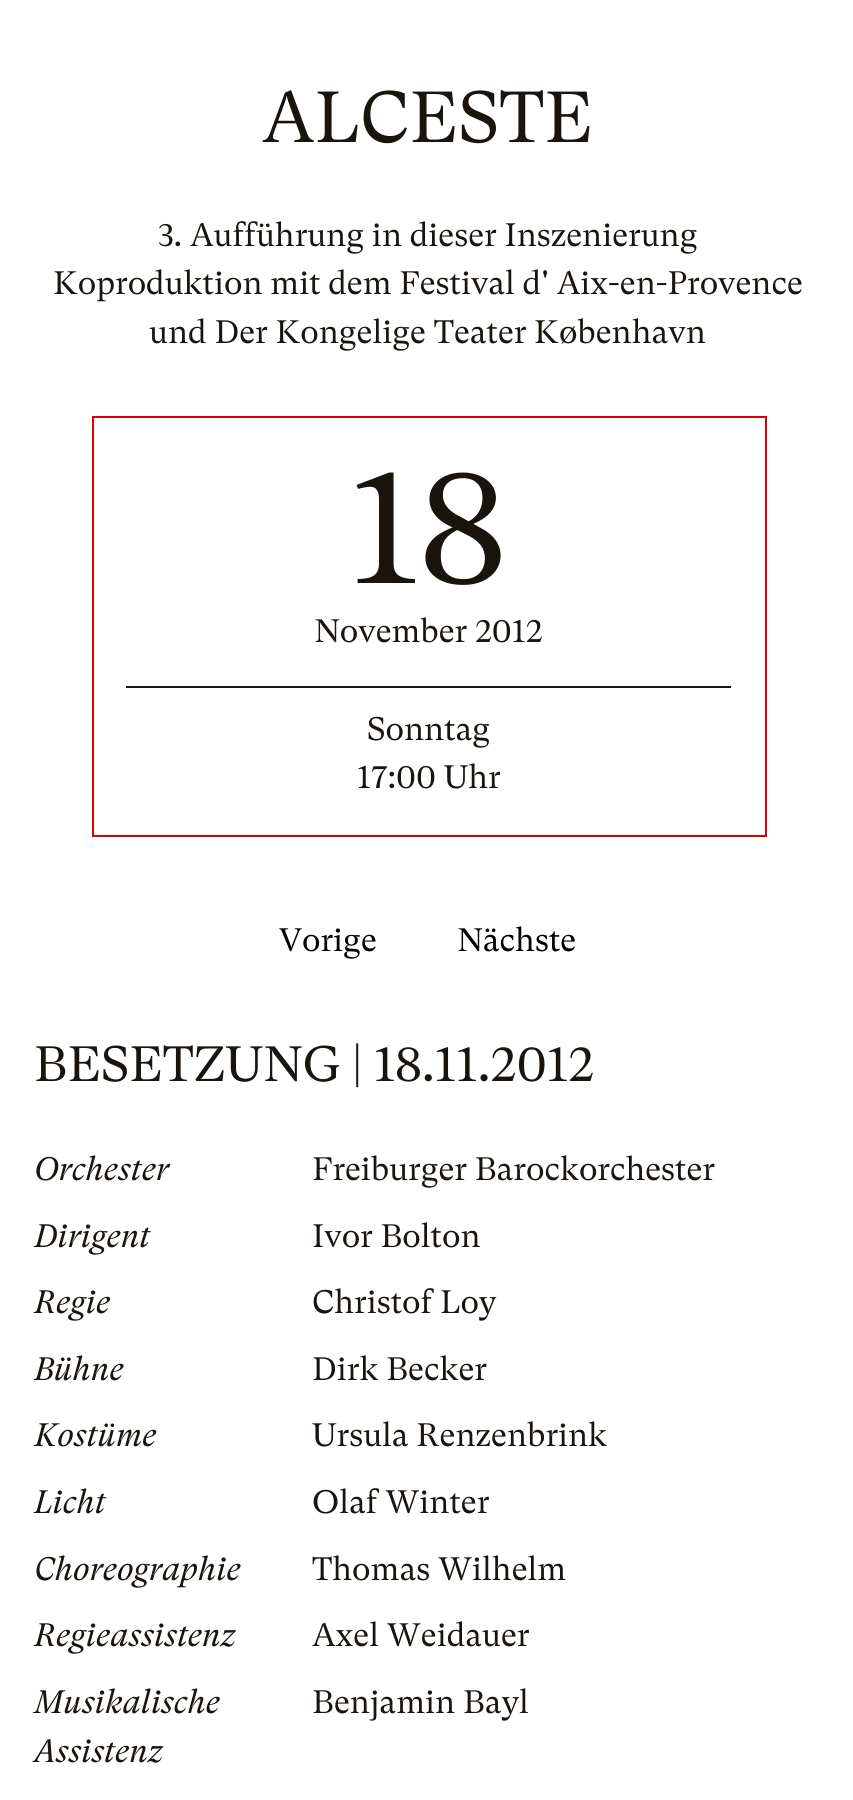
import math
import cairo

surface = cairo.ImageSurface(cairo.FORMAT_RGB24, 853, 1800)
ctx = cairo.Context(surface)
options = cairo.FontOptions()
options.set_hint_metrics(cairo.HINT_METRICS_OFF)
options.set_hint_style(cairo.HINT_STYLE_NONE)
ctx.set_font_options(options)
ctx.set_miter_limit(4)


def set_color(code):
    ctx.set_source_rgb(*(v / 255 for v in bytes.fromhex(code[-6:])))


def draw_text(x, y, s, family, size, color, bold=False, italic=False):
    ctx.select_font_face(family, cairo.FONT_SLANT_ITALIC if italic else cairo.FONT_SLANT_NORMAL, cairo.FONT_WEIGHT_BOLD if bold else cairo.FONT_WEIGHT_NORMAL)
    ctx.set_font_size(size)
    set_color(color)
    ctx.move_to(x, y)
    ctx.show_text(s)


def fill_rect(x, y, w, h, color):
    set_color(color)
    ctx.rectangle(x, y, w, h)
    ctx.fill()


set_color("#ffffff")
ctx.paint()
draw_text(262, 142, "ALCESTE", "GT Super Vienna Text", 72, "#19140e")
draw_text(158, 246, "3. Aufführung in dieser Inszenierung", "GT Super Vienna Text", 32.4, "#19140e")
draw_text(53, 294, "Koproduktion mit dem Festival d' Aix-en-Provence", "GT Super Vienna Text", 32.4, "#19140e")
draw_text(149, 343, "und Der Kongelige Teater København", "GT Super Vienna Text", 32.4, "#19140e")
ctx.rectangle(93, 417, 673, 419)
set_color("#de0000")
ctx.stroke()
draw_text(350, 583, "18", "GT Super Vienna Text", 162, "#19140e")
fill_rect(126, 686, 605, 2, "#19140e")
draw_text(314, 642, "November 2012", "GT Super Vienna Text", 32.4, "#19140e")
draw_text(367, 740, "Sonntag", "GT Super Vienna Text", 32.4, "#19140e")
draw_text(357, 788, "17:00 Uhr", "GT Super Vienna Text", 32.4, "#19140e")
draw_text(279, 951, "Vorige", "GT Super Vienna Text", 32.4, "#000000")
draw_text(457, 951, "Nächste", "GT Super Vienna Text", 32.4, "#000000")
draw_text(34, 1081, "BESETZUNG | 18.11.2012", "GT Super Vienna Text", 49.5, "#19140e")
draw_text(34, 1180, "Orchester", "GT Super Vienna Text", 32.4, "#19140e", italic=True)
draw_text(312, 1180, "Freiburger Barockorchester", "GT Super Vienna Text", 32.4, "#19140e")
draw_text(34, 1247, "Dirigent", "GT Super Vienna Text", 32.4, "#19140e", italic=True)
draw_text(312, 1247, "Ivor Bolton", "GT Super Vienna Text", 32.4, "#19140e")
draw_text(34, 1313, "Regie", "GT Super Vienna Text", 32.4, "#19140e", italic=True)
draw_text(312, 1313, "Christof Loy", "GT Super Vienna Text", 32.4, "#19140e")
draw_text(34, 1380, "Bühne", "GT Super Vienna Text", 32.4, "#19140e", italic=True)
draw_text(312, 1380, "Dirk Becker", "GT Super Vienna Text", 32.4, "#19140e")
draw_text(34, 1446, "Kostüme", "GT Super Vienna Text", 32.4, "#19140e", italic=True)
draw_text(312, 1446, "Ursula Renzenbrink", "GT Super Vienna Text", 32.4, "#19140e")
draw_text(34, 1513, "Licht", "GT Super Vienna Text", 32.4, "#19140e", italic=True)
draw_text(312, 1513, "Olaf Winter", "GT Super Vienna Text", 32.4, "#19140e")
draw_text(34, 1580, "Choreographie", "GT Super Vienna Text", 32.4, "#19140e", italic=True)
draw_text(312, 1580, "Thomas Wilhelm", "GT Super Vienna Text", 32.4, "#19140e")
draw_text(34, 1646, "Regieassistenz", "GT Super Vienna Text", 32.4, "#19140e", italic=True)
draw_text(312, 1646, "Axel Weidauer", "GT Super Vienna Text", 32.4, "#19140e")
draw_text(34, 1713, "Musikalische", "GT Super Vienna Text", 32.4, "#19140e", italic=True)
draw_text(34, 1762, "Assistenz", "GT Super Vienna Text", 32.4, "#19140e", italic=True)
draw_text(312, 1713, "Benjamin Bayl", "GT Super Vienna Text", 32.4, "#19140e")
surface.write_to_png("output.png")
